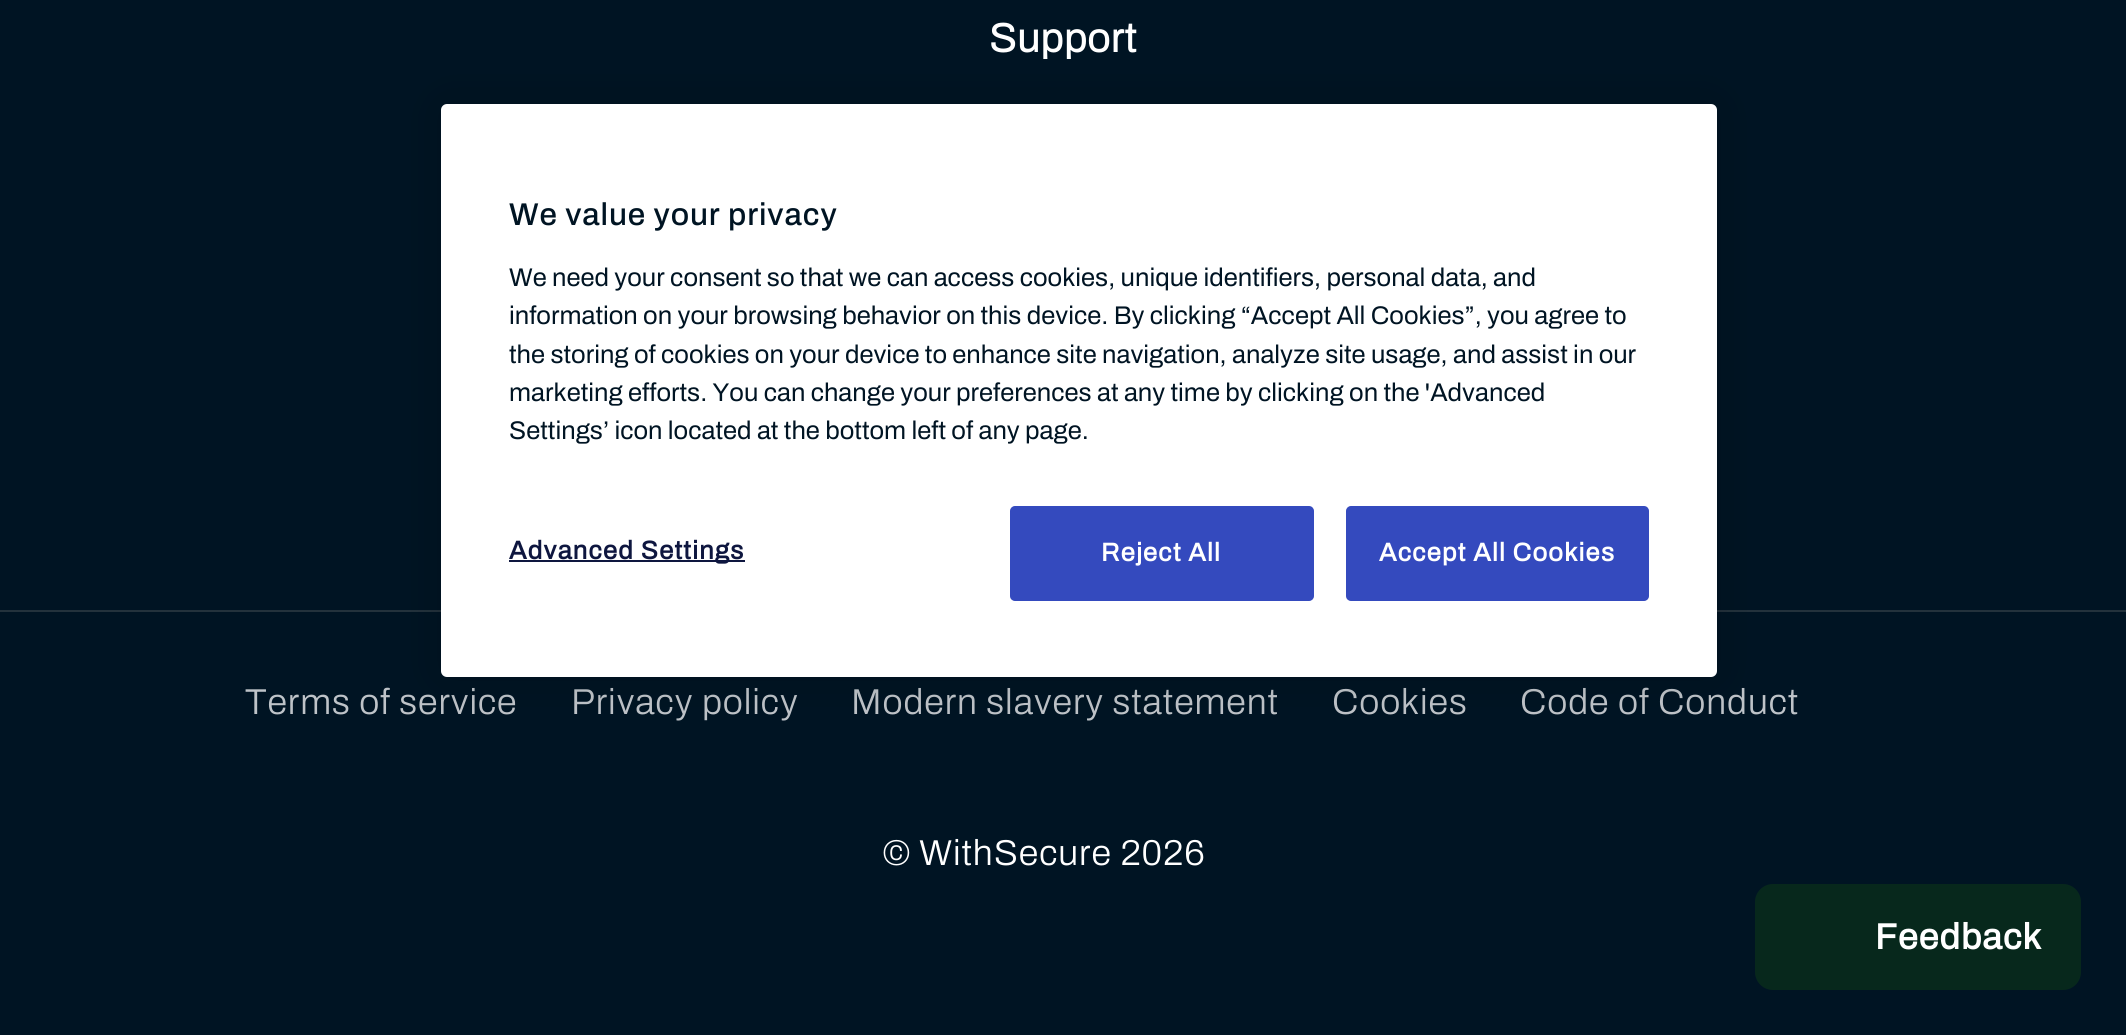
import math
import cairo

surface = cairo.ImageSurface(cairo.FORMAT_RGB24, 2126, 1035)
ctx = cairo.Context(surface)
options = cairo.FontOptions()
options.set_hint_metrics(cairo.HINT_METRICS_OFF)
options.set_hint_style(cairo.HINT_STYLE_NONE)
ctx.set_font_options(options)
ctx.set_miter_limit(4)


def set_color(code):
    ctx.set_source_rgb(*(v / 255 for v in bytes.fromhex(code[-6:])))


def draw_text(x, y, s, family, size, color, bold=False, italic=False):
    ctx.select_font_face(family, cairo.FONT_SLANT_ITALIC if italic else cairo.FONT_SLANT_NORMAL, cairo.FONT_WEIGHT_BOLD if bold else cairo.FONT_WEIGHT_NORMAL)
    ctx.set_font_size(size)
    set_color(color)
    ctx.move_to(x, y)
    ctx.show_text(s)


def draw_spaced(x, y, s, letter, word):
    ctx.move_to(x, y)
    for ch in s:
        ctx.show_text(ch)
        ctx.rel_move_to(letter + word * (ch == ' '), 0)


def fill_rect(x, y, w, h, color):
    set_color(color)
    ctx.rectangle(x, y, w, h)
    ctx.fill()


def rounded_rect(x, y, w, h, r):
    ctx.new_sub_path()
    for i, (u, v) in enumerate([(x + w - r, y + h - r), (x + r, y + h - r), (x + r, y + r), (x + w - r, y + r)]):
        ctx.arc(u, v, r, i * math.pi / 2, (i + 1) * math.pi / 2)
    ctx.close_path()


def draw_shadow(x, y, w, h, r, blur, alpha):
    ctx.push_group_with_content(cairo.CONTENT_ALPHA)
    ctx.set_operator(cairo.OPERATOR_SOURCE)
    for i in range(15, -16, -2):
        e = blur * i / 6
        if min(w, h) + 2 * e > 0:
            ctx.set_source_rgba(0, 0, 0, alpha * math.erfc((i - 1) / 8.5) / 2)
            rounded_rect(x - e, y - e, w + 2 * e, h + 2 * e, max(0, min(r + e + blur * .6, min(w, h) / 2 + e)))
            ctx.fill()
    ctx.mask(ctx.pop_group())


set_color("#001423")
ctx.paint()
fill_rect(0, 610, 2126, 2, "#23323c")
ctx.select_font_face("Archivo", cairo.FONT_SLANT_NORMAL, cairo.FONT_WEIGHT_BOLD)
ctx.set_font_size(40.5)
set_color("#ffffff")
draw_spaced(989, 52, "Support", 0.9, 0)
ctx.select_font_face("Archivo Light")
ctx.set_font_size(36)
set_color("#bec3c8")
draw_spaced(245, 714, "Terms of service", 0.9, 0)
draw_spaced(571, 714, "Privacy policy", 0.9, 0)
draw_spaced(851, 714, "Modern slavery statement", 0.9, 0)
draw_spaced(1332, 714, "Cookies", 0.9, 0)
draw_spaced(1520, 714, "Code of Conduct", 0.9, 0)
set_color("#ffffff")
draw_spaced(883, 865, "© WithSecure 2026", 0.9, 0)
set_color("#07281c")
rounded_rect(1756, 885, 324, 104, 17)
ctx.fill_preserve()
ctx.stroke()
ctx.select_font_face("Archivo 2", cairo.FONT_SLANT_NORMAL, cairo.FONT_WEIGHT_BOLD)
set_color("#ffffff")
draw_spaced(1875, 949, "Feedback", 1, 0)
set_color("#000000")
draw_shadow(441, 104, 1276, 573, 6, 20, 0.2)
set_color("#ffffff")
rounded_rect(441, 104, 1276, 573, 6)
ctx.fill()
ctx.select_font_face("Archivo Medium")
ctx.set_font_size(31.5)
set_color("#001423")
draw_spaced(509, 225, "We value your privacy", 0.9, 0)
draw_text(509, 286, "We need your consent so that we can access cookies, unique identifiers, personal data, and", "Archivo", 25.6, "#001423")
draw_text(509, 324, "information on your browsing behavior on this device. By clicking “Accept All Cookies”, you agree to", "Archivo", 25.6, "#001423")
draw_text(509, 363, "the storing of cookies on your device to enhance site navigation, analyze site usage, and assist in our", "Archivo", 25.6, "#001423")
draw_text(509, 401, "marketing efforts. You can change your preferences at any time by clicking on the 'Advanced", "Archivo", 25.6, "#001423")
draw_text(509, 439, "Settings’ icon located at the bottom left of any page.", "Archivo", 25.6, "#001423")
fill_rect(509, 560, 236, 2, "#0e163f")
ctx.select_font_face("Archivo 2", cairo.FONT_SLANT_NORMAL, cairo.FONT_WEIGHT_BOLD)
draw_spaced(509, 559, "Advanced Settings", 1.25, 0)
set_color("#344abe")
rounded_rect(1011, 507, 302, 93, 4)
ctx.fill_preserve()
ctx.stroke()
set_color("#ffffff")
draw_spaced(1101, 561, "Reject All", 1.25, 0)
set_color("#344abe")
rounded_rect(1347, 507, 301, 93, 4)
ctx.fill_preserve()
ctx.stroke()
set_color("#ffffff")
draw_spaced(1379, 561, "Accept All Cookies", 1.25, 0)
surface.write_to_png("output.png")
